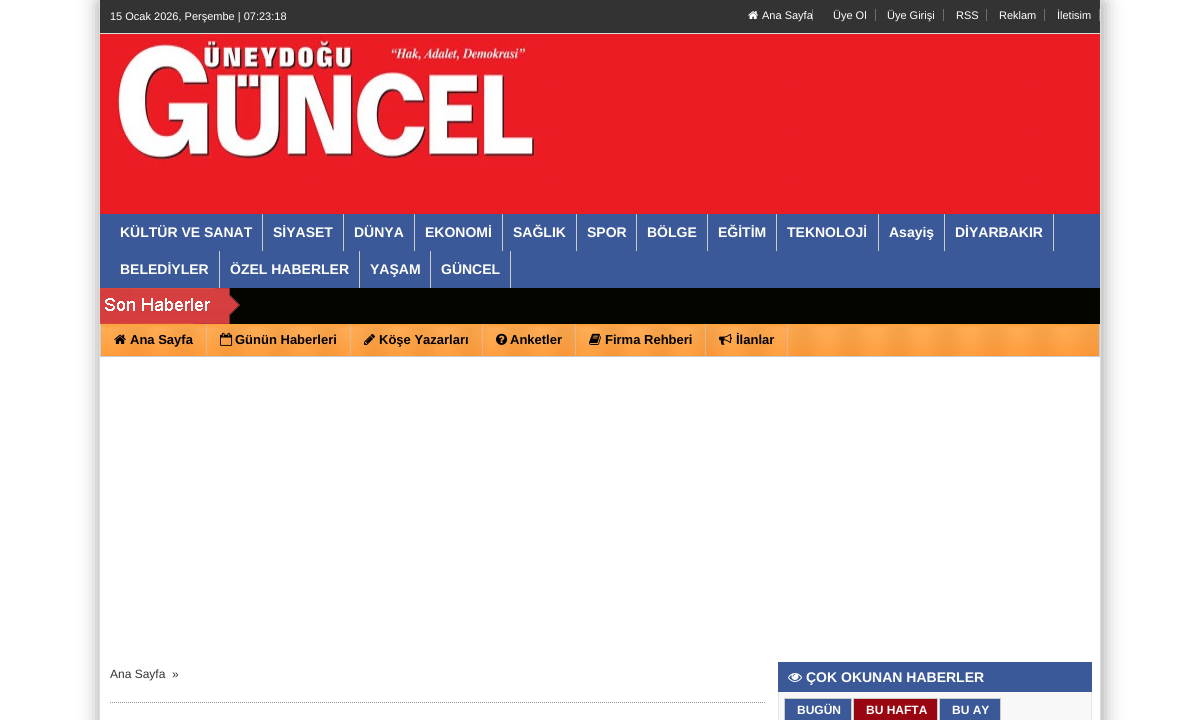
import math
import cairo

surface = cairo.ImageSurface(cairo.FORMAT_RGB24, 1200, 720)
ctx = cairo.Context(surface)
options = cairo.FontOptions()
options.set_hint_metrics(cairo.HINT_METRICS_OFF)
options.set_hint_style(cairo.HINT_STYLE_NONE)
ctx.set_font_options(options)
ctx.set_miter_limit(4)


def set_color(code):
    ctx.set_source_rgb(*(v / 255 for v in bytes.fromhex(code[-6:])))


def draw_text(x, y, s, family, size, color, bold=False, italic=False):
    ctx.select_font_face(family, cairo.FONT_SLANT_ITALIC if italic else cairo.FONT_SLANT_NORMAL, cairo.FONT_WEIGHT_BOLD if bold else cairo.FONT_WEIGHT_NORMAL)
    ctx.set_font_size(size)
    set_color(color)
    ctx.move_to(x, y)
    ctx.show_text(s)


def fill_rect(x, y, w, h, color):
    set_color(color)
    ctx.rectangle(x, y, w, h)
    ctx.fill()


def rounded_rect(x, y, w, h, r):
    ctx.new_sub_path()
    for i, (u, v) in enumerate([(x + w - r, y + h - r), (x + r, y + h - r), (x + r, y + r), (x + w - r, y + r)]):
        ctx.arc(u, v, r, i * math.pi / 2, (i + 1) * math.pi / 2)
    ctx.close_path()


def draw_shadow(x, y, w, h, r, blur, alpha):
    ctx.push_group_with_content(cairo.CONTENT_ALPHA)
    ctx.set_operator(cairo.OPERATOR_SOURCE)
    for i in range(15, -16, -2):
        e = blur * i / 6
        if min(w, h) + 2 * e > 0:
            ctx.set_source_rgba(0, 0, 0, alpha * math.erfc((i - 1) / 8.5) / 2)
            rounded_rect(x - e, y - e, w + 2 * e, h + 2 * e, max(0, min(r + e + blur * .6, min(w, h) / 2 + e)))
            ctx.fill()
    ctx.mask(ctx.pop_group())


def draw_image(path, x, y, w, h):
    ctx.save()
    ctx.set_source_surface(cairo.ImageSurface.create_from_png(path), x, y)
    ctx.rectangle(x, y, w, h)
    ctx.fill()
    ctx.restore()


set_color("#ffffff")
ctx.paint()
ctx.save()
ctx.set_fill_rule(cairo.FILL_RULE_EVEN_ODD)
ctx.new_path()
ctx.move_to(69, 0)
ctx.line_to(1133, 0)
ctx.line_to(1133, 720)
ctx.line_to(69, 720)
ctx.close_path()
ctx.move_to(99, 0)
ctx.line_to(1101, 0)
ctx.line_to(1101, 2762)
ctx.line_to(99, 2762)
ctx.close_path()
ctx.clip()
set_color("#999999")
draw_shadow(100, 2, 1002, 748, 0, 10, 1)
ctx.restore()
fill_rect(1100, 0, 1, 720, "#dddddd")
fill_rect(99, 0, 1, 720, "#dddddd")
fill_rect(100, 0, 1000, 33, "#333333")
fill_rect(100, 33, 1000, 1, "#dedede")
draw_text(110, 20, "15 Ocak 2026, Perşembe | 07:23:18", "Liberation Sans", 11, "#ffffff")
fill_rect(812, 9, 1, 12, "#6e6e6e")
draw_image("assets/img1.png", 748, 11, 10, 8)
draw_text(762, 19, "Ana Sayfa", "Liberation Sans", 11, "#ffffff")
draw_text(833, 19, "Üye Ol", "Liberation Sans", 11, "#ffffff")
fill_rect(875, 9, 1, 12, "#6e6e6e")
draw_text(887, 19, "Üye Girişi", "Liberation Sans", 11, "#ffffff")
fill_rect(943, 9, 1, 12, "#6e6e6e")
draw_text(956, 19, "RSS", "Liberation Sans", 11, "#ffffff")
fill_rect(986, 9, 1, 12, "#6e6e6e")
draw_text(999, 19, "Reklam", "Liberation Sans", 11, "#ffffff")
fill_rect(1044, 9, 1, 12, "#6e6e6e")
draw_text(1057, 19, "İletisim", "Liberation Sans", 11, "#ffffff")
fill_rect(1099, 9, 1, 12, "#6e6e6e")
draw_image("assets/img2.png", 100, 34, 1000, 180)
draw_image("assets/img3.png", 108, 34, 438, 130)
fill_rect(100, 214, 1000, 74, "#3b5998")
fill_rect(262, 214, 1, 37, "#cbcbcb")
draw_text(120, 237, "KÜLTÜR VE SANAT", "Liberation Sans", 14, "#ffffff", bold=True)
fill_rect(343, 214, 1, 37, "#cbcbcb")
draw_text(273, 237, "SİYASET", "Liberation Sans", 14, "#ffffff", bold=True)
fill_rect(414, 214, 1, 37, "#cbcbcb")
draw_text(354, 237, "DÜNYA", "Liberation Sans", 14, "#ffffff", bold=True)
fill_rect(502, 214, 1, 37, "#cbcbcb")
draw_text(425, 237, "EKONOMİ", "Liberation Sans", 14, "#ffffff", bold=True)
fill_rect(576, 214, 1, 37, "#cbcbcb")
draw_text(513, 237, "SAĞLIK", "Liberation Sans", 14, "#ffffff", bold=True)
fill_rect(636, 214, 1, 37, "#cbcbcb")
draw_text(587, 237, "SPOR", "Liberation Sans", 14, "#ffffff", bold=True)
fill_rect(707, 214, 1, 37, "#cbcbcb")
draw_text(647, 237, "BÖLGE", "Liberation Sans", 14, "#ffffff", bold=True)
fill_rect(776, 214, 1, 37, "#cbcbcb")
draw_text(718, 237, "EĞİTİM", "Liberation Sans", 14, "#ffffff", bold=True)
fill_rect(878, 214, 1, 37, "#cbcbcb")
draw_text(787, 237, "TEKNOLOJİ", "Liberation Sans", 14, "#ffffff", bold=True)
fill_rect(944, 214, 1, 37, "#cbcbcb")
draw_text(889, 237, "Asayiş", "Liberation Sans", 14, "#ffffff", bold=True)
fill_rect(1053, 214, 1, 37, "#cbcbcb")
draw_text(955, 237, "DİYARBAKIR", "Liberation Sans", 14, "#ffffff", bold=True)
fill_rect(219, 251, 1, 37, "#cbcbcb")
draw_text(120, 274, "BELEDİYLER", "Liberation Sans", 14, "#ffffff", bold=True)
fill_rect(359, 251, 1, 37, "#cbcbcb")
draw_text(230, 274, "ÖZEL HABERLER", "Liberation Sans", 14, "#ffffff", bold=True)
fill_rect(430, 251, 1, 37, "#cbcbcb")
draw_text(370, 274, "YAŞAM", "Liberation Sans", 14, "#ffffff", bold=True)
fill_rect(510, 251, 1, 37, "#cbcbcb")
draw_text(441, 274, "GÜNCEL", "Liberation Sans", 14, "#ffffff", bold=True)
draw_image("assets/img4.png", 100, 288, 1000, 36)
draw_image("assets/img5.png", 101, 324, 998, 32)
fill_rect(1099, 324, 1, 33, "#cccccc")
fill_rect(100, 356, 1000, 1, "#cccccc")
fill_rect(100, 324, 1, 33, "#cccccc")
ctx.new_path()
ctx.move_to(206.5, 324)
ctx.line_to(206.5, 356)
set_color("#cbcbcb")
ctx.set_line_width(1)
ctx.set_dash([1, 1])
ctx.stroke()
draw_image("assets/img6.png", 114, 334, 12, 10)
draw_text(130, 344, "Ana Sayfa", "Liberation Sans", 13, "#000000", bold=True)
ctx.new_path()
ctx.move_to(350.5, 324)
ctx.line_to(350.5, 356)
set_color("#cbcbcb")
ctx.stroke()
draw_image("assets/img7.png", 220, 332, 13, 14)
draw_text(235, 344, "Günün Haberleri", "Liberation Sans", 13, "#000000", bold=True)
ctx.new_path()
ctx.move_to(482.5, 324)
ctx.line_to(482.5, 356)
set_color("#cbcbcb")
ctx.stroke()
draw_image("assets/img8.png", 364, 334, 11, 11)
draw_text(379, 344, "Köşe Yazarları", "Liberation Sans", 13, "#000000", bold=True)
ctx.new_path()
ctx.move_to(575.5, 324)
ctx.line_to(575.5, 356)
set_color("#cbcbcb")
ctx.stroke()
draw_image("assets/img9.png", 496, 333, 12, 12)
draw_text(510, 344, "Anketler", "Liberation Sans", 13, "#000000", bold=True)
ctx.new_path()
ctx.move_to(705.5, 324)
ctx.line_to(705.5, 356)
set_color("#cbcbcb")
ctx.stroke()
draw_image("assets/img10.png", 589, 333, 12, 12)
draw_text(605, 344, "Firma Rehberi", "Liberation Sans", 13, "#000000", bold=True)
ctx.new_path()
ctx.move_to(787.5, 324)
ctx.line_to(787.5, 356)
set_color("#cbcbcb")
ctx.stroke()
draw_image("assets/img11.png", 719, 333, 13, 12)
draw_text(736, 344, "İlanlar", "Liberation Sans", 13, "#000000", bold=True)
draw_text(110, 678, "Ana Sayfa", "Liberation Sans", 12, "#333333")
draw_text(172, 678, "»", "Liberation Sans", 12, "#333333")
ctx.new_path()
ctx.move_to(110, 702.5)
ctx.line_to(766, 702.5)
set_color("#999999")
ctx.stroke()
fill_rect(778, 662, 314, 30, "#3b5998")
draw_image("assets/img12.png", 788, 673, 14, 9)
draw_text(806, 682, "ÇOK OKUNAN HABERLER", "Liberation Sans", 14, "#ffffff", bold=True)
fill_rect(779, 692, 312, 28, "#f8f8f8")
fill_rect(1091, 692, 1, 28, "#e5e5e5")
fill_rect(778, 692, 1, 28, "#e5e5e5")
set_color("#3b5998")
ctx.rectangle(784.5, 698.5, 67, 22)
ctx.fill_preserve()
set_color("#cccccc")
ctx.set_dash([])
ctx.stroke()
draw_text(797, 714, "BUGÜN", "Liberation Sans", 12, "#ffffff", bold=True)
fill_rect(854, 699, 83, 21, "#990612")
fill_rect(853, 698, 85, 1, "#cccccc")
fill_rect(937, 698, 1, 22, "#cccccc")
fill_rect(853, 698, 1, 22, "#cccccc")
draw_text(866, 714, "BU HAFTA", "Liberation Sans", 12, "#ffffff", bold=True)
set_color("#3b5998")
ctx.rectangle(939.5, 698.5, 61, 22)
ctx.fill_preserve()
set_color("#cccccc")
ctx.stroke()
draw_text(952, 714, "BU AY", "Liberation Sans", 12, "#ffffff", bold=True)
surface.write_to_png("output.png")
